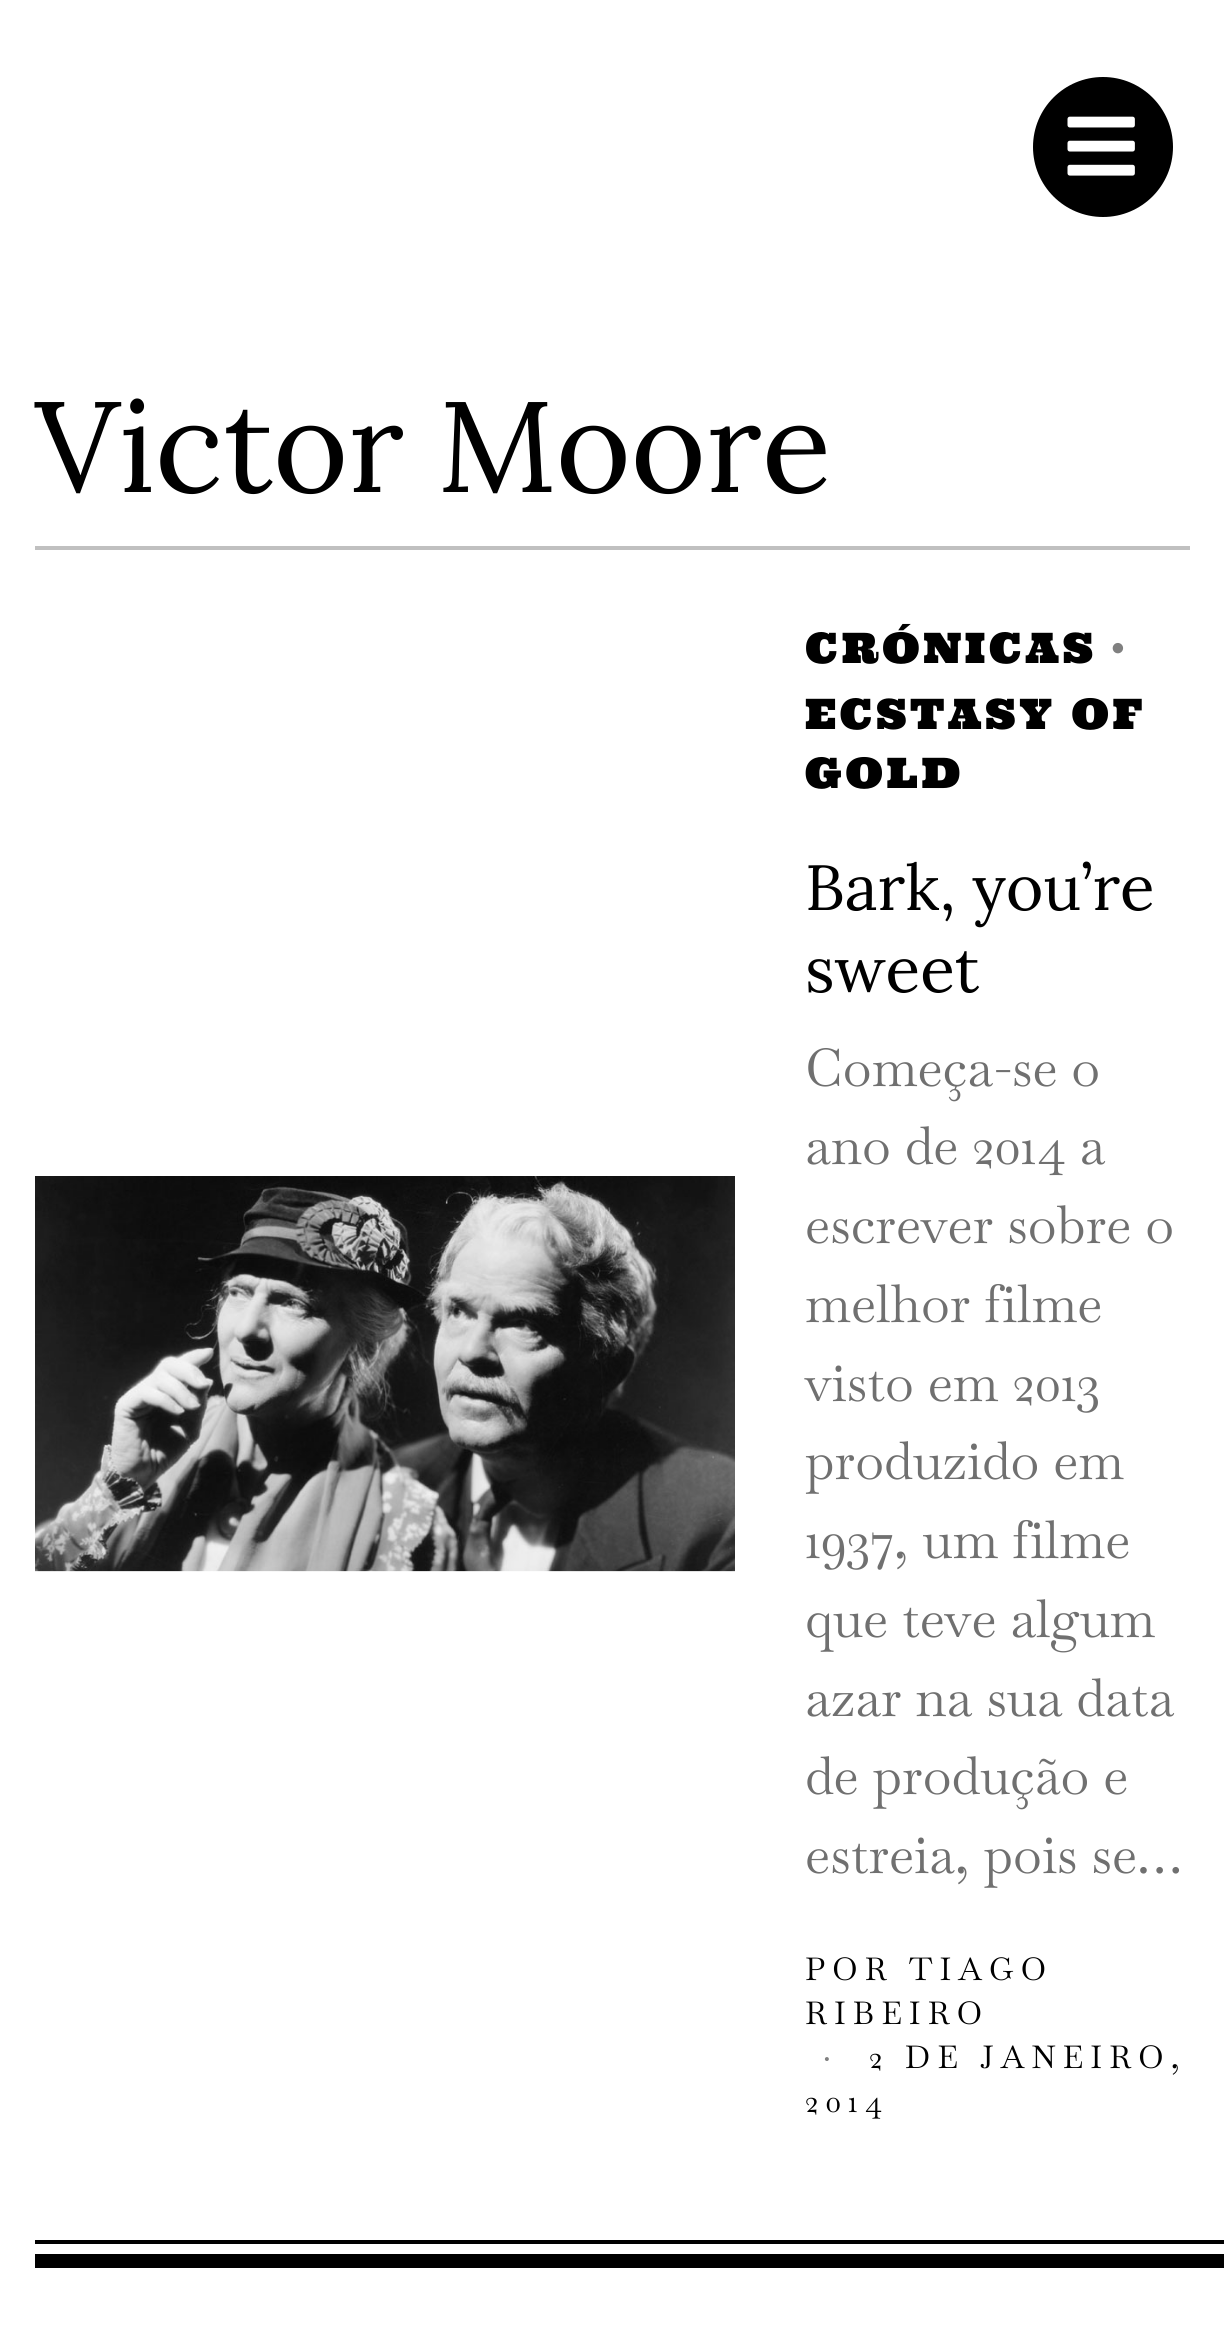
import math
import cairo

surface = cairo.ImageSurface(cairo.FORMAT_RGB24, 1224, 2345)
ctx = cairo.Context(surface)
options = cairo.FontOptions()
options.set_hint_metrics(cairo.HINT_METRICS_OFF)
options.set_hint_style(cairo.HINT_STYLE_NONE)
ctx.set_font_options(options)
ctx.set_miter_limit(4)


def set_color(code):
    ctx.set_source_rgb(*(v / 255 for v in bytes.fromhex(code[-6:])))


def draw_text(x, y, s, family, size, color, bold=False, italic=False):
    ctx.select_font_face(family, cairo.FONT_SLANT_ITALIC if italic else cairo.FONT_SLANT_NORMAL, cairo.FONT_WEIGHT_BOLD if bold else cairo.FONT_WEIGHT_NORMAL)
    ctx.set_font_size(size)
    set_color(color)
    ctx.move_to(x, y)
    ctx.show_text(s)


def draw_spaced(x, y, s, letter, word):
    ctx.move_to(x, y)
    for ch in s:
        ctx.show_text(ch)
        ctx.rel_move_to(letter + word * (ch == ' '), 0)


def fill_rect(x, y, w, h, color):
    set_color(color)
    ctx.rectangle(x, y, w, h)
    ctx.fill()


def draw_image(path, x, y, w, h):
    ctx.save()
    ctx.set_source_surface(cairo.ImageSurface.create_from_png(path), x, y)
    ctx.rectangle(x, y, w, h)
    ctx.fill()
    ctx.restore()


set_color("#ffffff")
ctx.paint()
set_color("#000000")
ctx.arc(1103, 147, 70, 0, 2 * math.pi)
ctx.fill()
draw_image("assets/img1.png", 1067, 116, 68, 60)
draw_text(35, 492, "Victor Moore", "Lora", 128.5, "#000000")
fill_rect(35, 546, 1155, 4, "#c0c0c0")
draw_image("assets/img2.png", 35, 1176, 700, 396)
ctx.select_font_face("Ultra")
ctx.set_font_size(42)
set_color("#000000")
draw_spaced(805, 663, "CRÓNICAS", 3.5, 0)
set_color("#808080")
draw_spaced(1111, 663, "·", 3.5, 0)
set_color("#000000")
draw_spaced(805, 729, "ECSTASY OF", 3.5, 0)
draw_spaced(805, 788, "GOLD", 3.5, 0)
draw_text(805, 910, "Bark, you’re", "Lora", 63.75, "#000000")
draw_text(805, 992, "sweet", "Lora", 63.75, "#000000")
draw_text(805, 1086, "Começa-se o", "Baskervville", 52.5, "#707070")
draw_text(805, 1164, "ano de 2014 a", "Baskervville", 52.5, "#707070")
draw_text(805, 1243, "escrever sobre o", "Baskervville", 52.5, "#707070")
draw_text(805, 1322, "melhor filme", "Baskervville", 52.5, "#707070")
draw_text(805, 1401, "visto em 2013", "Baskervville", 52.5, "#707070")
draw_text(805, 1479, "produzido em", "Baskervville", 52.5, "#707070")
draw_text(805, 1558, "1937, um filme", "Baskervville", 52.5, "#707070")
draw_text(805, 1637, "que teve algum", "Baskervville", 52.5, "#707070")
draw_text(805, 1716, "azar na sua data", "Baskervville", 52.5, "#707070")
draw_text(805, 1794, "de produção e", "Baskervville", 52.5, "#707070")
draw_text(805, 1873, "estreia, pois se…", "Baskervville", 52.5, "#707070")
ctx.set_font_size(31.5)
set_color("#000000")
draw_spaced(805, 1980, "POR TIAGO", 7, 0)
draw_spaced(805, 2024, "RIBEIRO", 7, 0)
set_color("#808080")
draw_spaced(823, 2068, "·", 7, 0)
set_color("#000000")
draw_spaced(869, 2068, "2 DE JANEIRO,", 7, 0)
draw_spaced(805, 2112, "2014", 7, 0)
fill_rect(35, 2254, 1189, 14, "#000000")
fill_rect(35, 2240, 1189, 4, "#000000")
surface.write_to_png("output.png")
